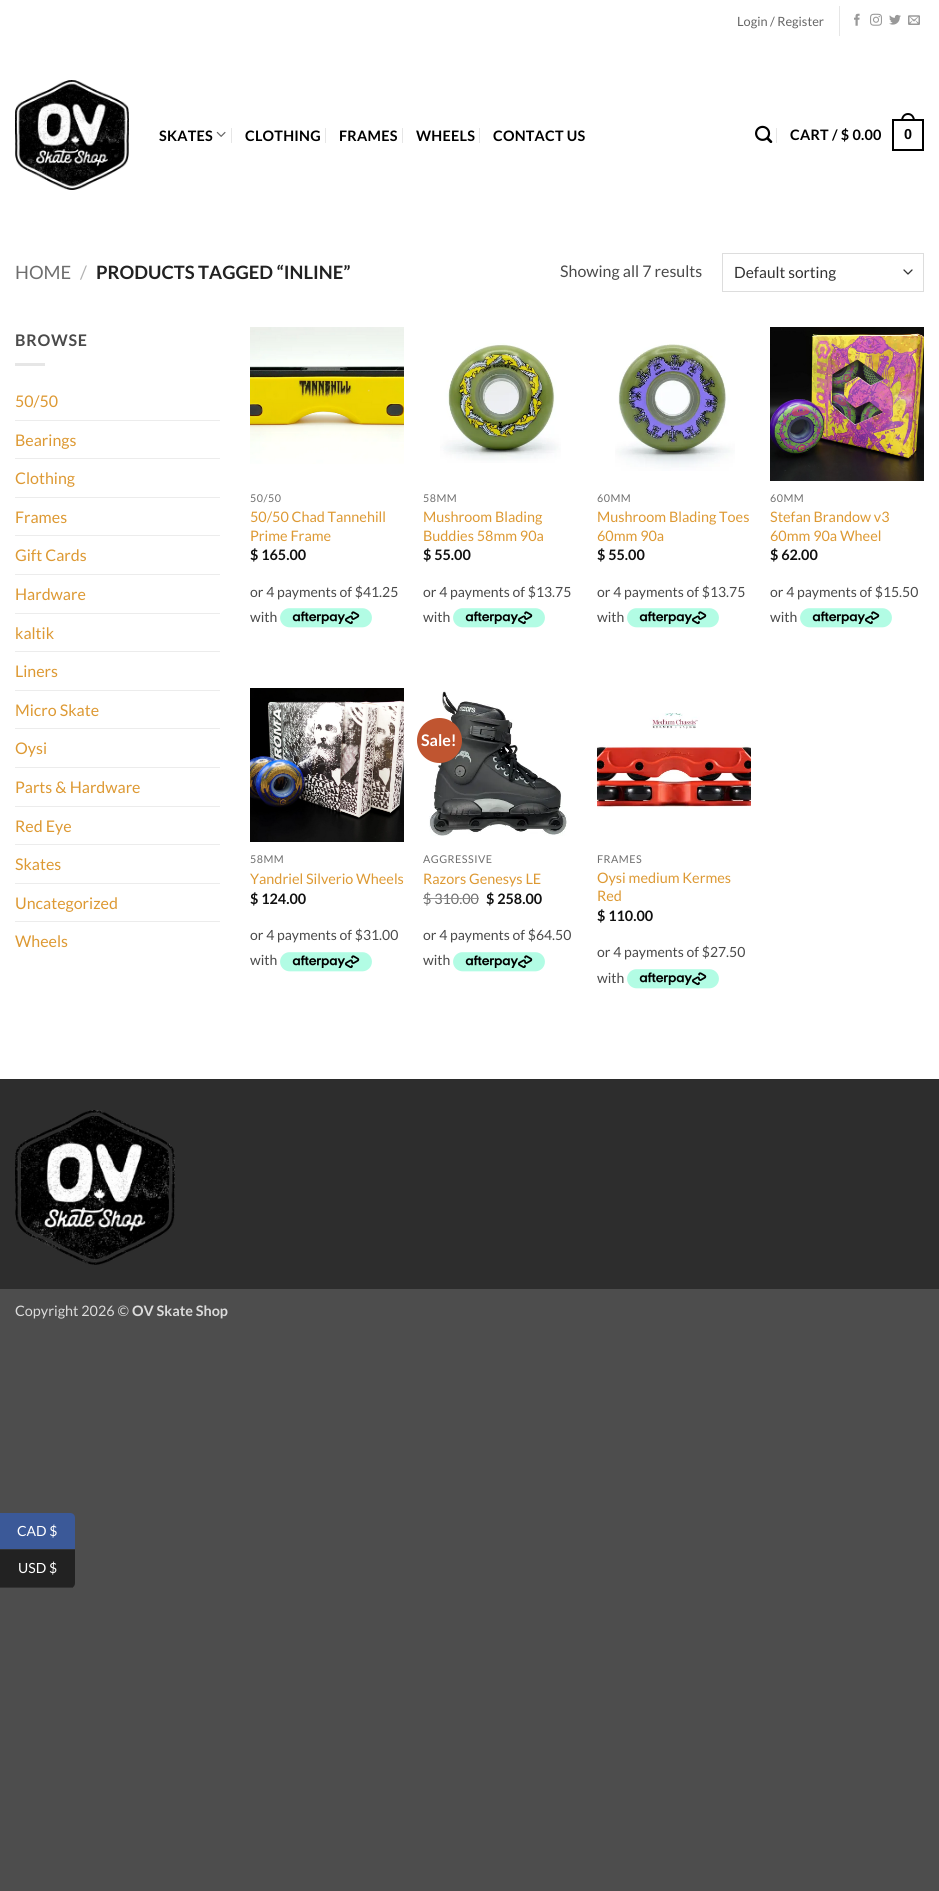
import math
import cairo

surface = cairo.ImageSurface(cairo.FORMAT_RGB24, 939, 1891)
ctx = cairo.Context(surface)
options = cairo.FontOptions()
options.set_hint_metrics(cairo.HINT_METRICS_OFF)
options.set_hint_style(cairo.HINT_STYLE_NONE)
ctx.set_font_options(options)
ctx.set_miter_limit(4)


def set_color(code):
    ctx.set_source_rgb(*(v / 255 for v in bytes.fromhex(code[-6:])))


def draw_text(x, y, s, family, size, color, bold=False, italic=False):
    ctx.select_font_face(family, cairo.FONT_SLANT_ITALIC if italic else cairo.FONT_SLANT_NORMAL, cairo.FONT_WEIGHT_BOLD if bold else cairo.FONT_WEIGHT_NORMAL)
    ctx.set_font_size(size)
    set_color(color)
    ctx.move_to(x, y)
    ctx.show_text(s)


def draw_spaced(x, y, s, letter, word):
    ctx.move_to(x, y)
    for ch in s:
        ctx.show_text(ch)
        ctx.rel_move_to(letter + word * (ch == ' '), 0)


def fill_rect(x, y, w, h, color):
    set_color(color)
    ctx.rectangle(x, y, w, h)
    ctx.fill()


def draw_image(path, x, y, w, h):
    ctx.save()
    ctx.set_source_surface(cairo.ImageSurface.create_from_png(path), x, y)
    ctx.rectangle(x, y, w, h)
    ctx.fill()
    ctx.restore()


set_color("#4d4d4d")
ctx.paint()
fill_rect(0, 0, 939, 1079, "#ffffff")
draw_text(737, 26, "Login / Register", "Lato", 12.75, "#656565")
fill_rect(839, 6, 1, 30, "#e6e6e6")
draw_image("assets/img1.png", 854, 13, 6, 13)
draw_image("assets/img2.png", 870, 13, 12, 13)
draw_image("assets/img3.png", 889, 14, 12, 11)
draw_image("assets/img4.png", 908, 15, 12, 10)
draw_image("assets/img5.png", 15, 80, 114, 110)
ctx.select_font_face("Lato", cairo.FONT_SLANT_NORMAL, cairo.FONT_WEIGHT_BOLD)
ctx.set_font_size(14.4)
set_color("#000000")
draw_spaced(159, 141, "SKATES", 0.25, 0)
draw_image("assets/img6.png", 216, 131, 10, 6)
fill_rect(231, 128, 1, 15, "#e6e6e6")
set_color("#000000")
draw_spaced(245, 141, "CLOTHING", 0.25, 0)
fill_rect(325, 128, 1, 15, "#e6e6e6")
set_color("#000000")
draw_spaced(339, 141, "FRAMES", 0.25, 0)
fill_rect(402, 128, 1, 15, "#e6e6e6")
set_color("#000000")
draw_spaced(416, 141, "WHEELS", 0.25, 0)
fill_rect(479, 128, 1, 15, "#e6e6e6")
set_color("#000000")
draw_spaced(493, 141, "CONTACT US", 0.25, 0)
draw_image("assets/img7.png", 755, 125, 18, 18)
fill_rect(776, 128, 1, 15, "#e6e6e6")
set_color("#000000")
draw_spaced(790, 140, "CART / $ 0.00", 0.25, 0)
ctx.rectangle(893, 120, 30, 30)
ctx.stroke()
ctx.set_fill_rule(cairo.FILL_RULE_EVEN_ODD)
ctx.new_path()
ctx.move_to(908, 113)
ctx.curve_to(912.5, 113, 915, 117, 915, 121)
ctx.line_to(901, 121)
ctx.curve_to(901, 117, 903.5, 113, 908, 113)
ctx.close_path()
ctx.move_to(908, 115)
ctx.curve_to(911.5, 115, 913, 118, 913, 121)
ctx.line_to(903, 121)
ctx.curve_to(903, 118, 904.5, 115, 908, 115)
ctx.close_path()
ctx.fill()
ctx.select_font_face("Liberation Sans", cairo.FONT_SLANT_NORMAL, cairo.FONT_WEIGHT_BOLD)
draw_spaced(904, 139, "0", 0.25, 0)
draw_text(15, 279, "HOME", "Lato", 18.4, "#6e6e6e")
draw_text(80, 279, "/", "Lato", 18.4, "#b2b2b2")
draw_text(96, 279, "PRODUCTS TAGGED “INLINE”", "Lato", 18.4, "#222222", bold=True)
draw_text(560, 277, "Showing all 7 results", "Lato", 16, "#4a4a4a")
ctx.new_path()
ctx.move_to(904, 270)
ctx.line_to(908, 274)
ctx.line_to(912, 270)
set_color("#333333")
ctx.set_line_width(1.3)
ctx.set_line_cap(cairo.LINE_CAP_ROUND)
ctx.set_line_join(cairo.LINE_JOIN_ROUND)
ctx.stroke()
ctx.rectangle(722.5, 253.5, 201, 38)
set_color("#dddddd")
ctx.set_line_width(1)
ctx.set_line_cap(cairo.LINE_CAP_BUTT)
ctx.set_line_join(cairo.LINE_JOIN_MITER)
ctx.stroke()
draw_text(734, 278, "Default sorting", "Lato", 15.5, "#333333")
ctx.select_font_face("Lato", cairo.FONT_SLANT_NORMAL, cairo.FONT_WEIGHT_BOLD)
ctx.set_font_size(16)
set_color("#4a4a4a")
draw_spaced(15, 346, "BROWSE", 0.75, 0)
fill_rect(15, 363, 30, 3, "#e6e6e6")
draw_text(15, 407, "50/50", "Lato", 16, "#dd9933")
fill_rect(15, 420, 205, 1, "#ececec")
draw_text(15, 446, "Bearings", "Lato", 16, "#dd9933")
fill_rect(15, 458, 205, 1, "#ececec")
draw_text(15, 484, "Clothing", "Lato", 16, "#dd9933")
fill_rect(15, 497, 205, 1, "#ececec")
draw_text(15, 523, "Frames", "Lato", 16, "#dd9933")
fill_rect(15, 535, 205, 1, "#ececec")
draw_text(15, 561, "Gift Cards", "Lato", 16, "#dd9933")
fill_rect(15, 574, 205, 1, "#ececec")
draw_text(15, 600, "Hardware", "Lato", 16, "#dd9933")
fill_rect(15, 613, 205, 1, "#ececec")
draw_text(15, 639, "kaltik", "Lato", 16, "#dd9933")
fill_rect(15, 651, 205, 1, "#ececec")
draw_text(15, 677, "Liners", "Lato", 16, "#dd9933")
fill_rect(15, 690, 205, 1, "#ececec")
draw_text(15, 716, "Micro Skate", "Lato", 16, "#dd9933")
fill_rect(15, 728, 205, 1, "#ececec")
draw_text(15, 754, "Oysi", "Lato", 16, "#dd9933")
fill_rect(15, 767, 205, 1, "#ececec")
draw_text(15, 793, "Parts & Hardware", "Lato", 16, "#dd9933")
fill_rect(15, 806, 205, 1, "#ececec")
draw_text(15, 832, "Red Eye", "Lato", 16, "#dd9933")
fill_rect(15, 844, 205, 1, "#ececec")
draw_text(15, 870, "Skates", "Lato", 16, "#dd9933")
fill_rect(15, 883, 205, 1, "#ececec")
draw_text(15, 909, "Uncategorized", "Lato", 16, "#dd9933")
fill_rect(15, 921, 205, 1, "#ececec")
draw_text(15, 947, "Wheels", "Lato", 16, "#dd9933")
draw_image("assets/img8.png", 250, 327, 154, 137)
ctx.set_font_size(10.75)
set_color("#6e6e6e")
draw_spaced(250, 502, "50/50", 0.5, 0)
draw_text(250, 522, "50/50 Chad Tannehill", "Lato", 14.4, "#dd9933")
draw_text(250, 541, "Prime Frame", "Lato", 14.4, "#dd9933")
draw_text(250, 560, "$ 165.00", "Lato", 14.4, "#111111", bold=True)
draw_text(250, 597, "or 4 payments of $41.25", "Lato", 14, "#4a4a4a")
draw_text(250, 622, "with", "Lato", 14, "#4a4a4a")
draw_image("assets/img9.png", 280, 608, 92, 20)
draw_image("assets/img10.png", 440, 343, 121, 120)
ctx.set_font_size(10.75)
set_color("#6e6e6e")
draw_spaced(423, 502, "58MM", 0.5, 0)
draw_text(423, 522, "Mushroom Blading", "Lato", 14.4, "#dd9933")
draw_text(423, 541, "Buddies 58mm 90a", "Lato", 14.4, "#dd9933")
draw_text(423, 560, "$ 55.00", "Lato", 14.4, "#111111", bold=True)
draw_text(423, 597, "or 4 payments of $13.75", "Lato", 14, "#4a4a4a")
draw_text(423, 622, "with", "Lato", 14, "#4a4a4a")
draw_image("assets/img9.png", 453, 608, 92, 20)
draw_image("assets/img11.png", 615, 344, 120, 127)
ctx.set_font_size(10.75)
set_color("#6e6e6e")
draw_spaced(597, 502, "60MM", 0.5, 0)
draw_text(597, 522, "Mushroom Blading Toes", "Lato", 14.4, "#dd9933")
draw_text(597, 541, "60mm 90a", "Lato", 14.4, "#dd9933")
draw_text(597, 560, "$ 55.00", "Lato", 14.4, "#111111", bold=True)
draw_text(597, 597, "or 4 payments of $13.75", "Lato", 14, "#4a4a4a")
draw_text(597, 622, "with", "Lato", 14, "#4a4a4a")
draw_image("assets/img9.png", 627, 608, 92, 20)
draw_image("assets/img12.png", 770, 327, 154, 154)
ctx.set_font_size(10.75)
set_color("#6e6e6e")
draw_spaced(770, 502, "60MM", 0.5, 0)
draw_text(770, 522, "Stefan Brandow v3", "Lato", 14.4, "#dd9933")
draw_text(770, 541, "60mm 90a Wheel", "Lato", 14.4, "#dd9933")
draw_text(770, 560, "$ 62.00", "Lato", 14.4, "#111111", bold=True)
draw_text(770, 597, "or 4 payments of $15.50", "Lato", 14, "#4a4a4a")
draw_text(770, 622, "with", "Lato", 14, "#4a4a4a")
draw_image("assets/img9.png", 800, 608, 92, 20)
draw_image("assets/img13.png", 250, 688, 154, 154)
ctx.set_font_size(10.75)
set_color("#6e6e6e")
draw_spaced(250, 863, "58MM", 0.5, 0)
draw_text(250, 884, "Yandriel Silverio Wheels", "Lato", 14.4, "#dd9933")
draw_text(250, 904, "$ 124.00", "Lato", 14.4, "#111111", bold=True)
draw_text(250, 940, "or 4 payments of $31.00", "Lato", 14, "#4a4a4a")
draw_text(250, 965, "with", "Lato", 14, "#4a4a4a")
draw_image("assets/img9.png", 280, 952, 92, 20)
draw_image("assets/img14.png", 429, 691, 138, 145)
set_color("#c05530")
ctx.arc(439.5, 740.5, 22.5, 0, 2 * math.pi)
ctx.fill()
draw_text(421, 746, "Sale!", "Lato", 16, "#ffffff", bold=True)
ctx.select_font_face("Lato")
ctx.set_font_size(10.75)
set_color("#6e6e6e")
draw_spaced(423, 863, "AGGRESSIVE", 0.5, 0)
draw_text(423, 884, "Razors Genesys LE", "Lato", 14.4, "#dd9933")
draw_text(423, 904, "$ 310.00", "Lato", 14.4, "#6e6e6e")
fill_rect(423, 898, 56, 1, "#929292")
draw_text(486, 904, "$ 258.00", "Lato", 14.4, "#111111", bold=True)
draw_text(423, 940, "or 4 payments of $64.50", "Lato", 14, "#4a4a4a")
draw_text(423, 965, "with", "Lato", 14, "#4a4a4a")
draw_image("assets/img9.png", 453, 952, 92, 20)
draw_image("assets/img15.png", 597, 713, 154, 96)
ctx.set_font_size(10.75)
set_color("#6e6e6e")
draw_spaced(597, 863, "FRAMES", 0.5, 0)
draw_text(597, 883, "Oysi medium Kermes", "Lato", 14.4, "#dd9933")
draw_text(597, 901, "Red", "Lato", 14.4, "#dd9933")
draw_text(597, 921, "$ 110.00", "Lato", 14.4, "#111111", bold=True)
draw_text(597, 957, "or 4 payments of $27.50", "Lato", 14, "#4a4a4a")
draw_text(597, 983, "with", "Lato", 14, "#4a4a4a")
draw_image("assets/img9.png", 627, 969, 92, 20)
fill_rect(0, 1080, 939, 209, "#2d2d2d")
fill_rect(0, 1079, 939, 1, "#2b2b2b")
draw_image("assets/img16.png", 15, 1110, 160, 155)
draw_text(15, 1316, "Copyright 2026 ©", "Lato", 14.4, "#dbdbdb")
draw_text(132, 1316, "OV Skate Shop", "Lato", 14.4, "#dbdbdb", bold=True)
set_color("#3b5998")
ctx.new_path()
ctx.move_to(0, 1513)
ctx.line_to(70, 1513)
ctx.curve_to(73, 1513, 75, 1515, 75, 1518)
ctx.line_to(75, 1550)
ctx.line_to(0, 1550)
ctx.close_path()
ctx.fill()
fill_rect(0, 1549, 75, 1, "#333333")
draw_text(17, 1536, "CAD $", "Lato", 14, "#ffffff")
set_color("#222222")
ctx.new_path()
ctx.move_to(0, 1550)
ctx.line_to(75, 1550)
ctx.line_to(75, 1583)
ctx.curve_to(75, 1586, 73, 1588, 70, 1588)
ctx.line_to(0, 1588)
ctx.close_path()
ctx.fill()
fill_rect(0, 1587, 73, 1, "#333333")
draw_text(18, 1573, "USD $", "Lato", 14, "#ffffff")
surface.write_to_png("output.png")
